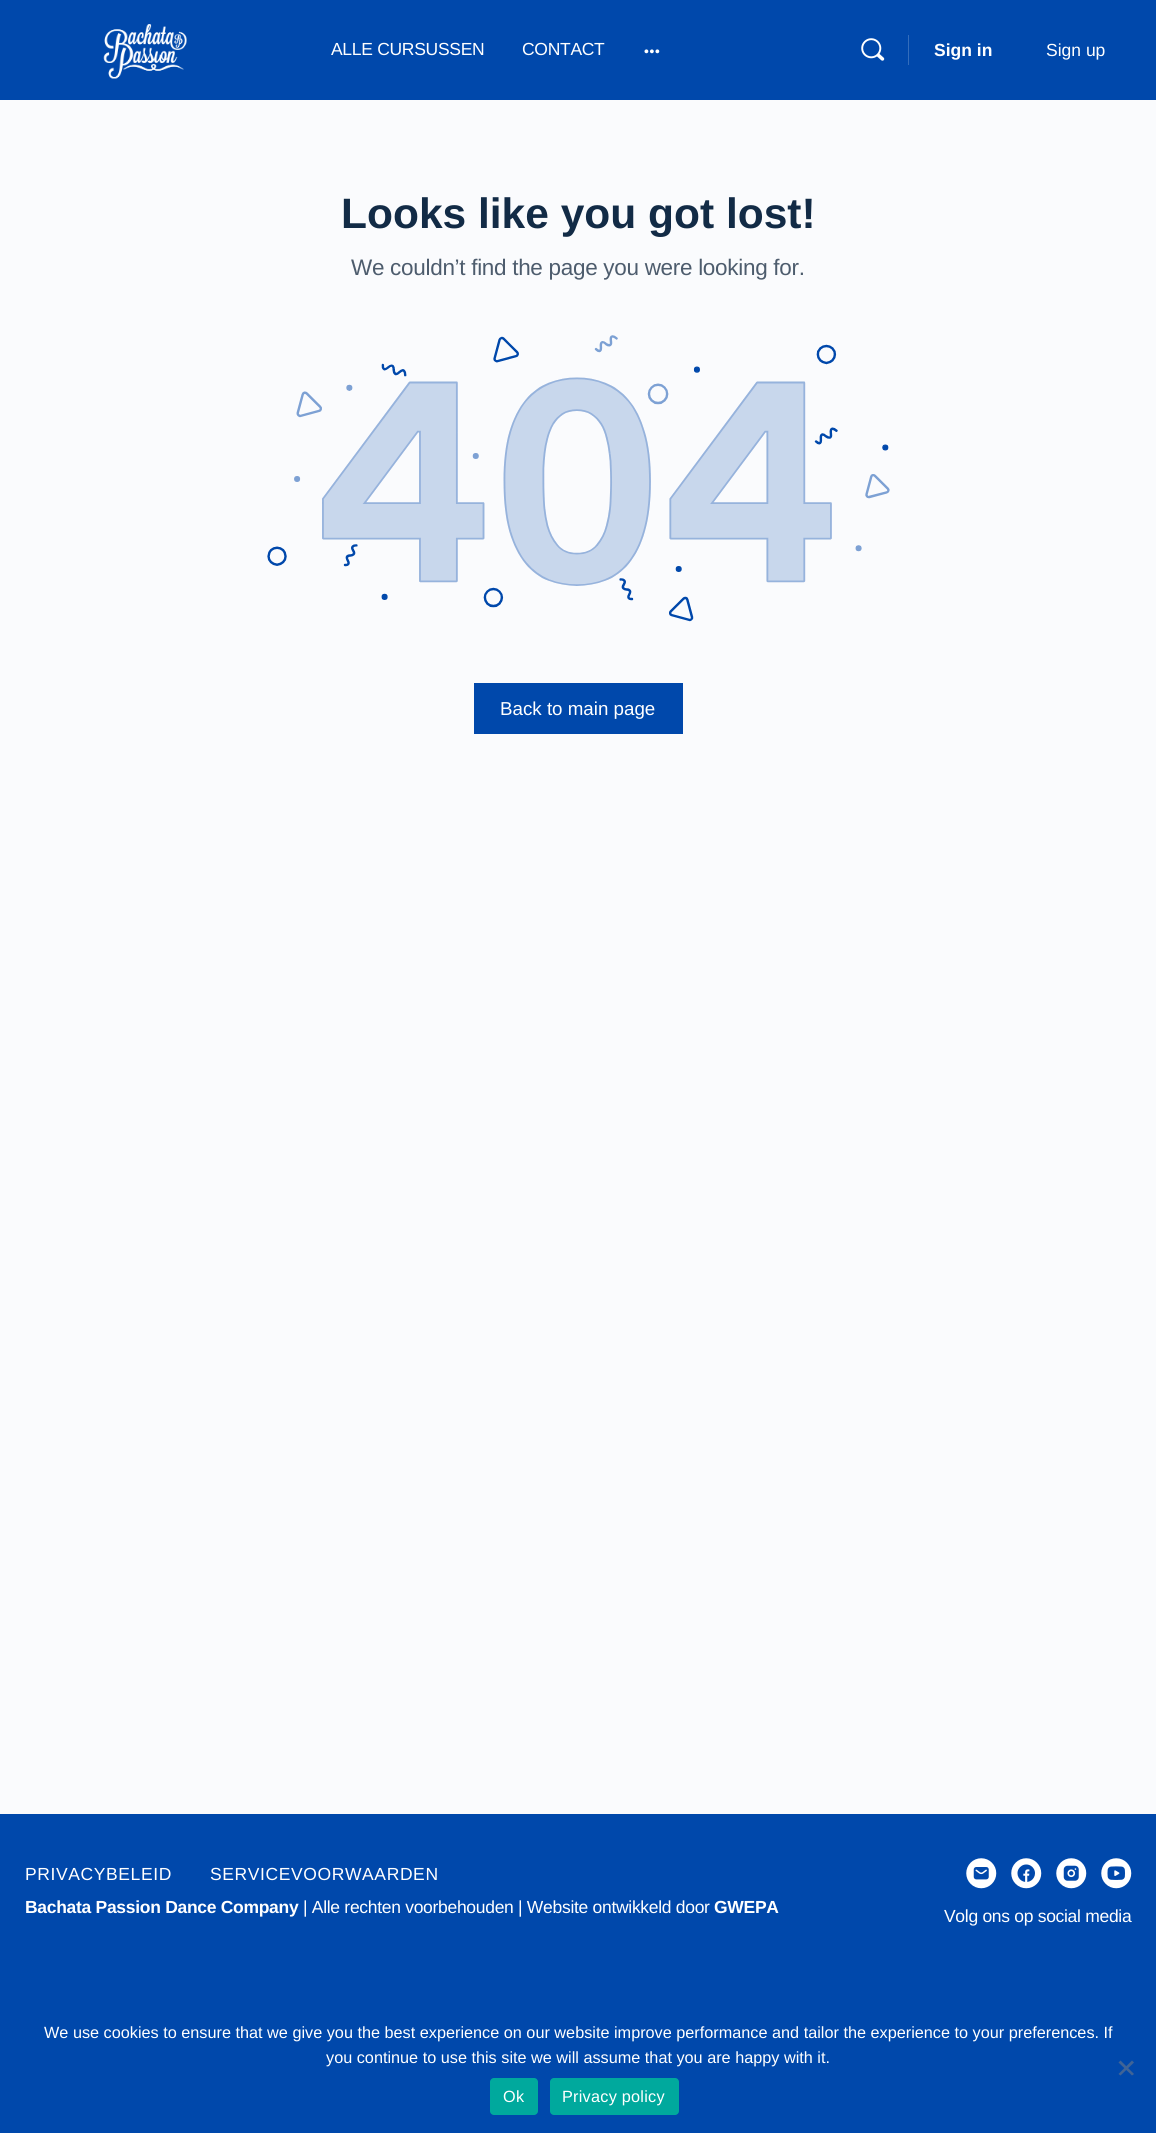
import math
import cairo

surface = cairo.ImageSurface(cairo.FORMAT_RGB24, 1156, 2133)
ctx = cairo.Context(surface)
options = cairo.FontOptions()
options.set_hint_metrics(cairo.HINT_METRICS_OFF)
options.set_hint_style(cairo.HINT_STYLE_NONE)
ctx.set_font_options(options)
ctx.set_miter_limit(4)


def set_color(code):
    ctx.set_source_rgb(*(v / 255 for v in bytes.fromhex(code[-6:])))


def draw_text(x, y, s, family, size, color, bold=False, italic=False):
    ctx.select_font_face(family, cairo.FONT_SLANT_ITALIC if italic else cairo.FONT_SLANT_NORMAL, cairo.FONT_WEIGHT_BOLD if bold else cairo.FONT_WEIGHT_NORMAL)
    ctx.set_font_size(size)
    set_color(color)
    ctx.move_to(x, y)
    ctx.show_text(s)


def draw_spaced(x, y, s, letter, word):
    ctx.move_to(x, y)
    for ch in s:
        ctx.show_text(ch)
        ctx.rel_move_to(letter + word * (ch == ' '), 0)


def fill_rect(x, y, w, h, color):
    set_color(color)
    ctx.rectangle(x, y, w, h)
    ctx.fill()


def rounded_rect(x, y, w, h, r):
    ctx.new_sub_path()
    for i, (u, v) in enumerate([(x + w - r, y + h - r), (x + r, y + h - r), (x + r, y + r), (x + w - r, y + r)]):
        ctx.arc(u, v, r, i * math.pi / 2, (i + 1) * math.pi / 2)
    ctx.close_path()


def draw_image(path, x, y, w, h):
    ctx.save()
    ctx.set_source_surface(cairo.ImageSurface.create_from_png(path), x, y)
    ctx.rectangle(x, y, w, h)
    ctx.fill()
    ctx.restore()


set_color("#fafbfd")
ctx.paint()
fill_rect(0, 0, 1156, 100, "#0048ab")
draw_image("assets/img1.png", 103, 24, 84, 55)
ctx.select_font_face("Liberation Sans")
ctx.set_font_size(17.5)
set_color("#ffffff")
draw_spaced(331, 55, "ALLE CURSUSSEN", -0.3, 0)
draw_spaced(522, 55, "CONTACT", -0.3, 0)
draw_image("assets/img2.png", 644, 49, 16, 5)
draw_image("assets/img3.png", 861, 38, 24, 23)
fill_rect(908, 35, 1, 30, "#336dbc")
draw_text(934, 56, "Sign in", "Liberation Sans", 17.5, "#ffffff", bold=True)
draw_text(1046, 56, "Sign up", "Liberation Sans", 17.5, "#ffffff")
draw_text(341, 228, "Looks like you got lost!", "Liberation Sans", 42.5, "#122b46", bold=True)
ctx.select_font_face("Liberation Sans")
ctx.set_font_size(22.5)
set_color("#4d5c6d")
draw_spaced(351, 275, "We couldn’t find the page you were looking for.", -0.3, 0)
draw_image("assets/img4.png", 267, 335, 623, 287)
fill_rect(474, 683, 209, 51, "#0048ab")
draw_text(500, 715, "Back to main page", "Liberation Sans", 18.75, "#ffffff")
fill_rect(0, 1814, 1156, 319, "#0048ab")
ctx.set_font_size(17.5)
set_color("#ffffff")
draw_spaced(25, 1880, "PRIVACYBELEID", 0.6, 0)
draw_spaced(210, 1880, "SERVICEVOORWAARDEN", 0.6, 0)
ctx.select_font_face("Liberation Sans", cairo.FONT_SLANT_NORMAL, cairo.FONT_WEIGHT_BOLD)
draw_spaced(25, 1913, "Bachata Passion Dance Company", -0.3, 0)
ctx.select_font_face("Liberation Sans")
draw_spaced(303, 1913, "| Alle rechten voorbehouden | Website ontwikkeld door", -0.3, 0)
ctx.select_font_face("Liberation Sans", cairo.FONT_SLANT_NORMAL, cairo.FONT_WEIGHT_BOLD)
draw_spaced(714, 1913, "GWEPA", -0.3, 0)
draw_image("assets/img5.png", 966, 1858, 31, 31)
draw_image("assets/img6.png", 1011, 1858, 31, 31)
draw_image("assets/img7.png", 1056, 1858, 31, 31)
draw_image("assets/img8.png", 1101, 1858, 31, 31)
ctx.select_font_face("Liberation Sans")
draw_spaced(944, 1922, "Volg ons op social media", -0.3, 0)
draw_text(44, 2038, "We use cookies to ensure that we give you the best experience on our website improve performance and tailor the experience to your preferences. If", "Liberation Sans", 16.25, "#ffffff")
draw_text(326, 2063, "you continue to use this site we will assume that you are happy with it.", "Liberation Sans", 16.25, "#ffffff")
set_color("#406496")
ctx.new_path()
ctx.move_to(1132, 2060.5)
ctx.line_to(1134, 2062.5)
ctx.line_to(1120.5, 2075.5)
ctx.line_to(1118.5, 2074)
ctx.close_path()
ctx.fill()
ctx.new_path()
ctx.move_to(1118.5, 2062.5)
ctx.line_to(1120.5, 2060.5)
ctx.line_to(1134, 2074)
ctx.line_to(1132, 2075.5)
ctx.close_path()
ctx.fill()
set_color("#00a99d")
rounded_rect(490, 2078, 48, 37, 4)
ctx.fill()
set_color("#ffffff")
draw_spaced(503, 2102, "Ok", 0.25, 0)
set_color("#00a99d")
rounded_rect(550, 2078, 129, 37, 4)
ctx.fill()
set_color("#ffffff")
draw_spaced(562, 2102, "Privacy policy", 0.25, 0)
surface.write_to_png("output.png")
